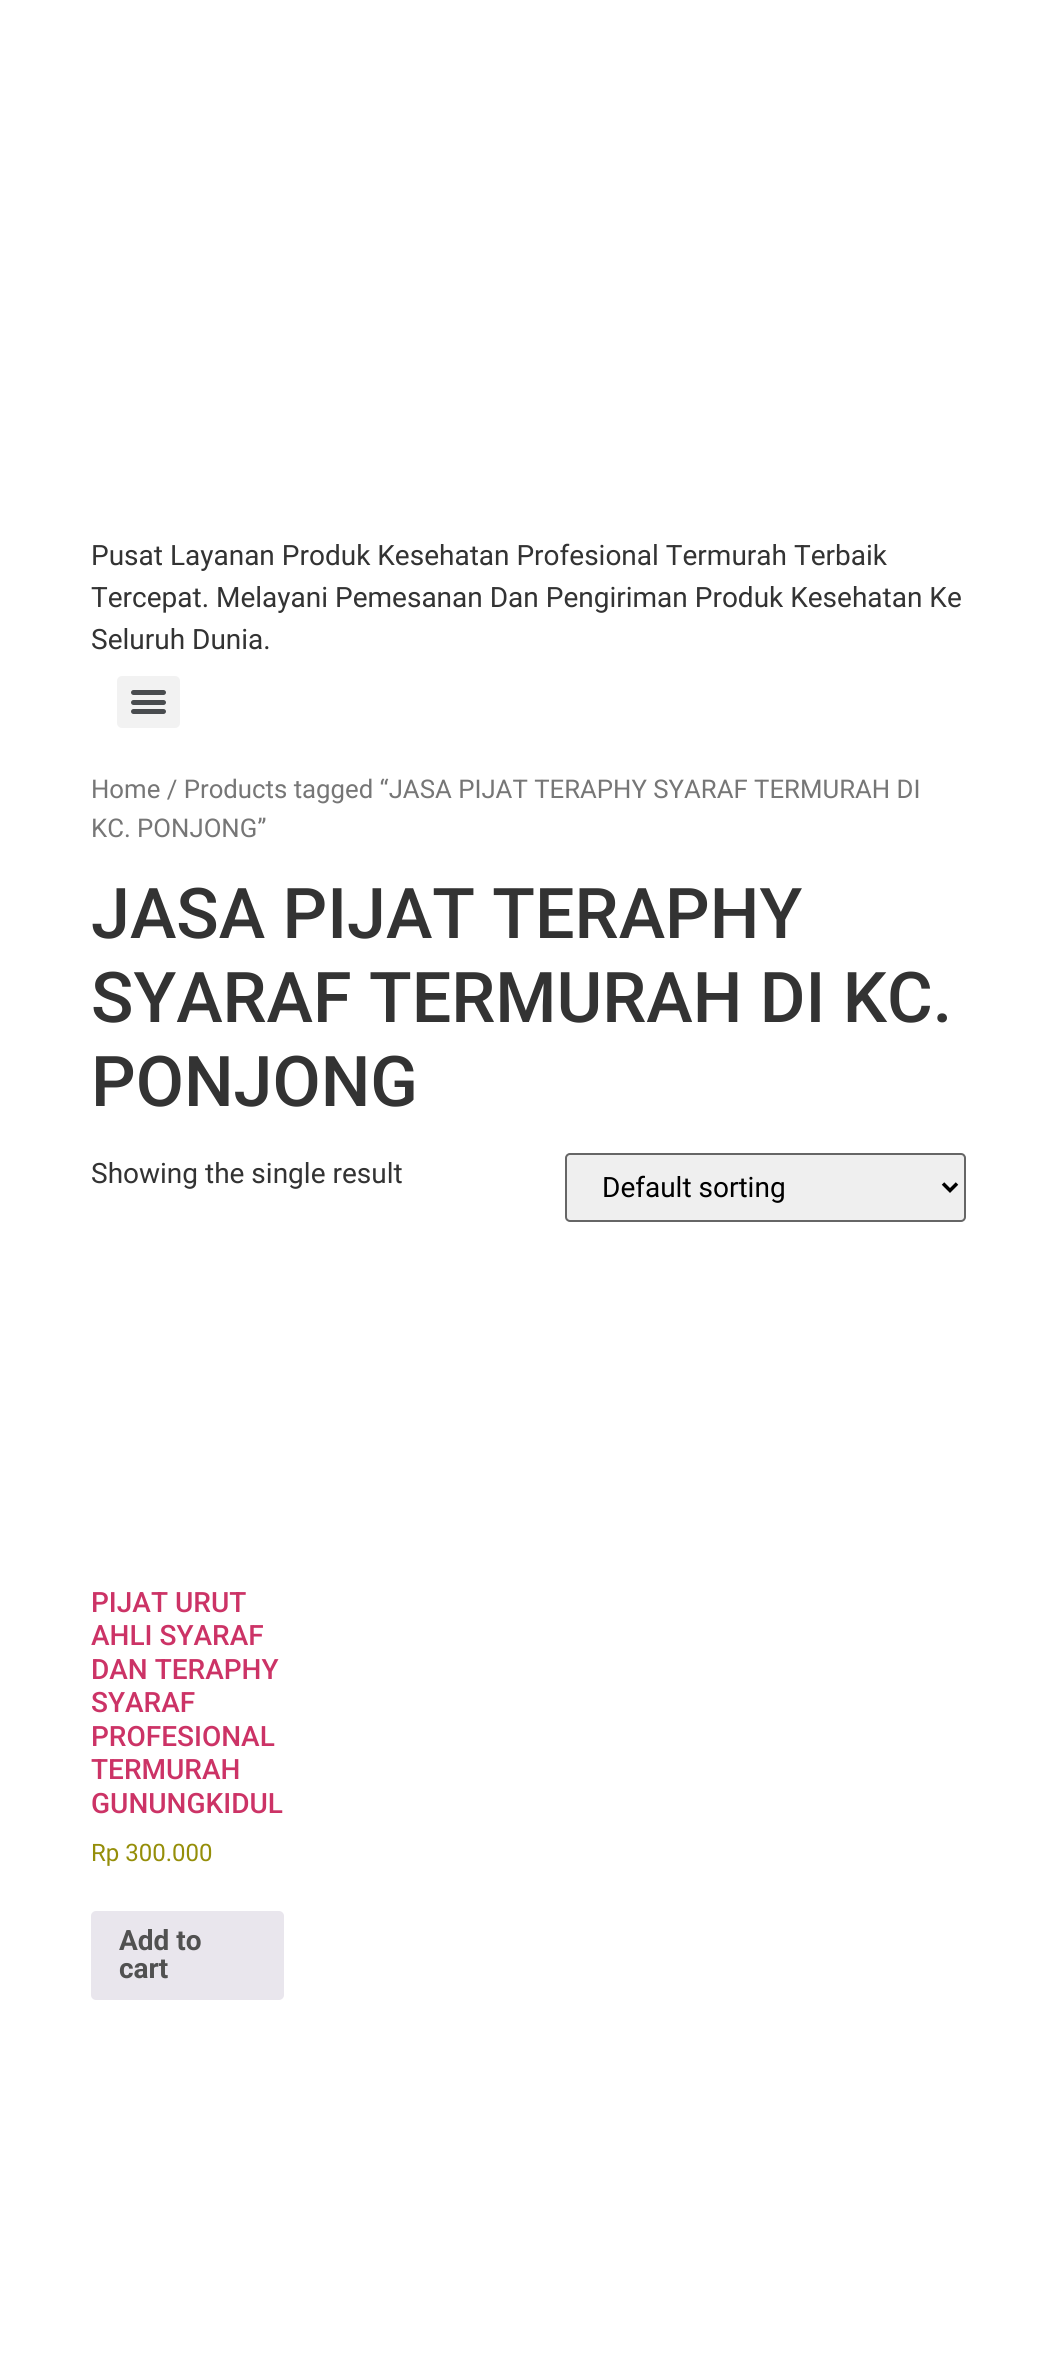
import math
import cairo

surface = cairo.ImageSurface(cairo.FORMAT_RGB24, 1057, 2355)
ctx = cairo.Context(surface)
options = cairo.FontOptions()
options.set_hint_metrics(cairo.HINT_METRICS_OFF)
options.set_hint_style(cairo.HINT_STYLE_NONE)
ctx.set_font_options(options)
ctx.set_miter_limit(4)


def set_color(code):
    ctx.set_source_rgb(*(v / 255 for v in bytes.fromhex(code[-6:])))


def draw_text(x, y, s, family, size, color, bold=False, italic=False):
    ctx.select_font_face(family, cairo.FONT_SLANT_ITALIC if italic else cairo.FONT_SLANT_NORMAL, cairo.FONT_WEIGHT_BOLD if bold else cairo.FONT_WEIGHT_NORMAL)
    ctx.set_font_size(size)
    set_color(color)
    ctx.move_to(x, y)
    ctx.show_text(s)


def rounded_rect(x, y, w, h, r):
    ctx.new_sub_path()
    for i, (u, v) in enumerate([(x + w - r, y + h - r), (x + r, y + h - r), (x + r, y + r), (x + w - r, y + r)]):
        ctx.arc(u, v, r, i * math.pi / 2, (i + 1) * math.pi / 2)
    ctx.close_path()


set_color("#ffffff")
ctx.paint()
draw_text(91, 565, "Pusat Layanan Produk Kesehatan Profesional Termurah Terbaik", "Roboto", 28, "#333333")
draw_text(91, 607, "Tercepat. Melayani Pemesanan Dan Pengiriman Produk Kesehatan Ke", "Roboto", 28, "#333333")
draw_text(91, 649, "Seluruh Dunia.", "Roboto", 28, "#333333")
set_color("#f2f2f2")
rounded_rect(117, 676, 63, 52, 5)
ctx.fill()
set_color("#494c4f")
rounded_rect(131, 700, 35, 5, 2.5)
ctx.fill()
rounded_rect(131, 690, 35, 5, 2.5)
ctx.fill()
rounded_rect(131, 709, 35, 5, 2.5)
ctx.fill()
draw_text(91, 798, "Home / Products tagged “JASA PIJAT TERAPHY SYARAF TERMURAH DI", "Roboto", 25.75, "#767676")
draw_text(91, 837, "KC. PONJONG”", "Roboto", 25.75, "#767676")
draw_text(91, 938, "JASA PIJAT TERAPHY", "Roboto Medium", 70, "#333333")
draw_text(91, 1022, "SYARAF TERMURAH DI KC.", "Roboto Medium", 70, "#333333")
draw_text(91, 1106, "PONJONG", "Roboto Medium", 70, "#333333")
draw_text(91, 1183, "Showing the single result", "Roboto", 28, "#333333")
set_color("#efefef")
rounded_rect(566, 1154, 399, 67, 4)
ctx.fill_preserve()
set_color("#666666")
ctx.stroke()
ctx.new_path()
ctx.move_to(943, 1183.5)
ctx.line_to(950, 1190.5)
ctx.line_to(957, 1183.5)
set_color("#000000")
ctx.set_line_width(3.5)
ctx.stroke()
draw_text(602, 1197, "Default sorting", "Roboto", 28, "#000000")
draw_text(91, 1612, "PIJAT URUT", "Roboto Medium", 28, "#cc3366")
draw_text(91, 1645, "AHLI SYARAF", "Roboto Medium", 28, "#cc3366")
draw_text(91, 1679, "DAN TERAPHY", "Roboto Medium", 28, "#cc3366")
draw_text(91, 1712, "SYARAF", "Roboto Medium", 28, "#cc3366")
draw_text(91, 1746, "PROFESIONAL", "Roboto Medium", 28, "#cc3366")
draw_text(91, 1779, "TERMURAH", "Roboto Medium", 28, "#cc3366")
draw_text(91, 1813, "GUNUNGKIDUL", "Roboto Medium", 28, "#cc3366")
draw_text(91, 1861, "Rp 300.000", "Roboto", 24, "#958e09")
set_color("#e9e6ed")
rounded_rect(91, 1911, 193, 89, 5)
ctx.fill()
draw_text(119, 1950, "Add to", "Roboto", 28, "#515151", bold=True)
draw_text(119, 1978, "cart", "Roboto", 28, "#515151", bold=True)
surface.write_to_png("output.png")
